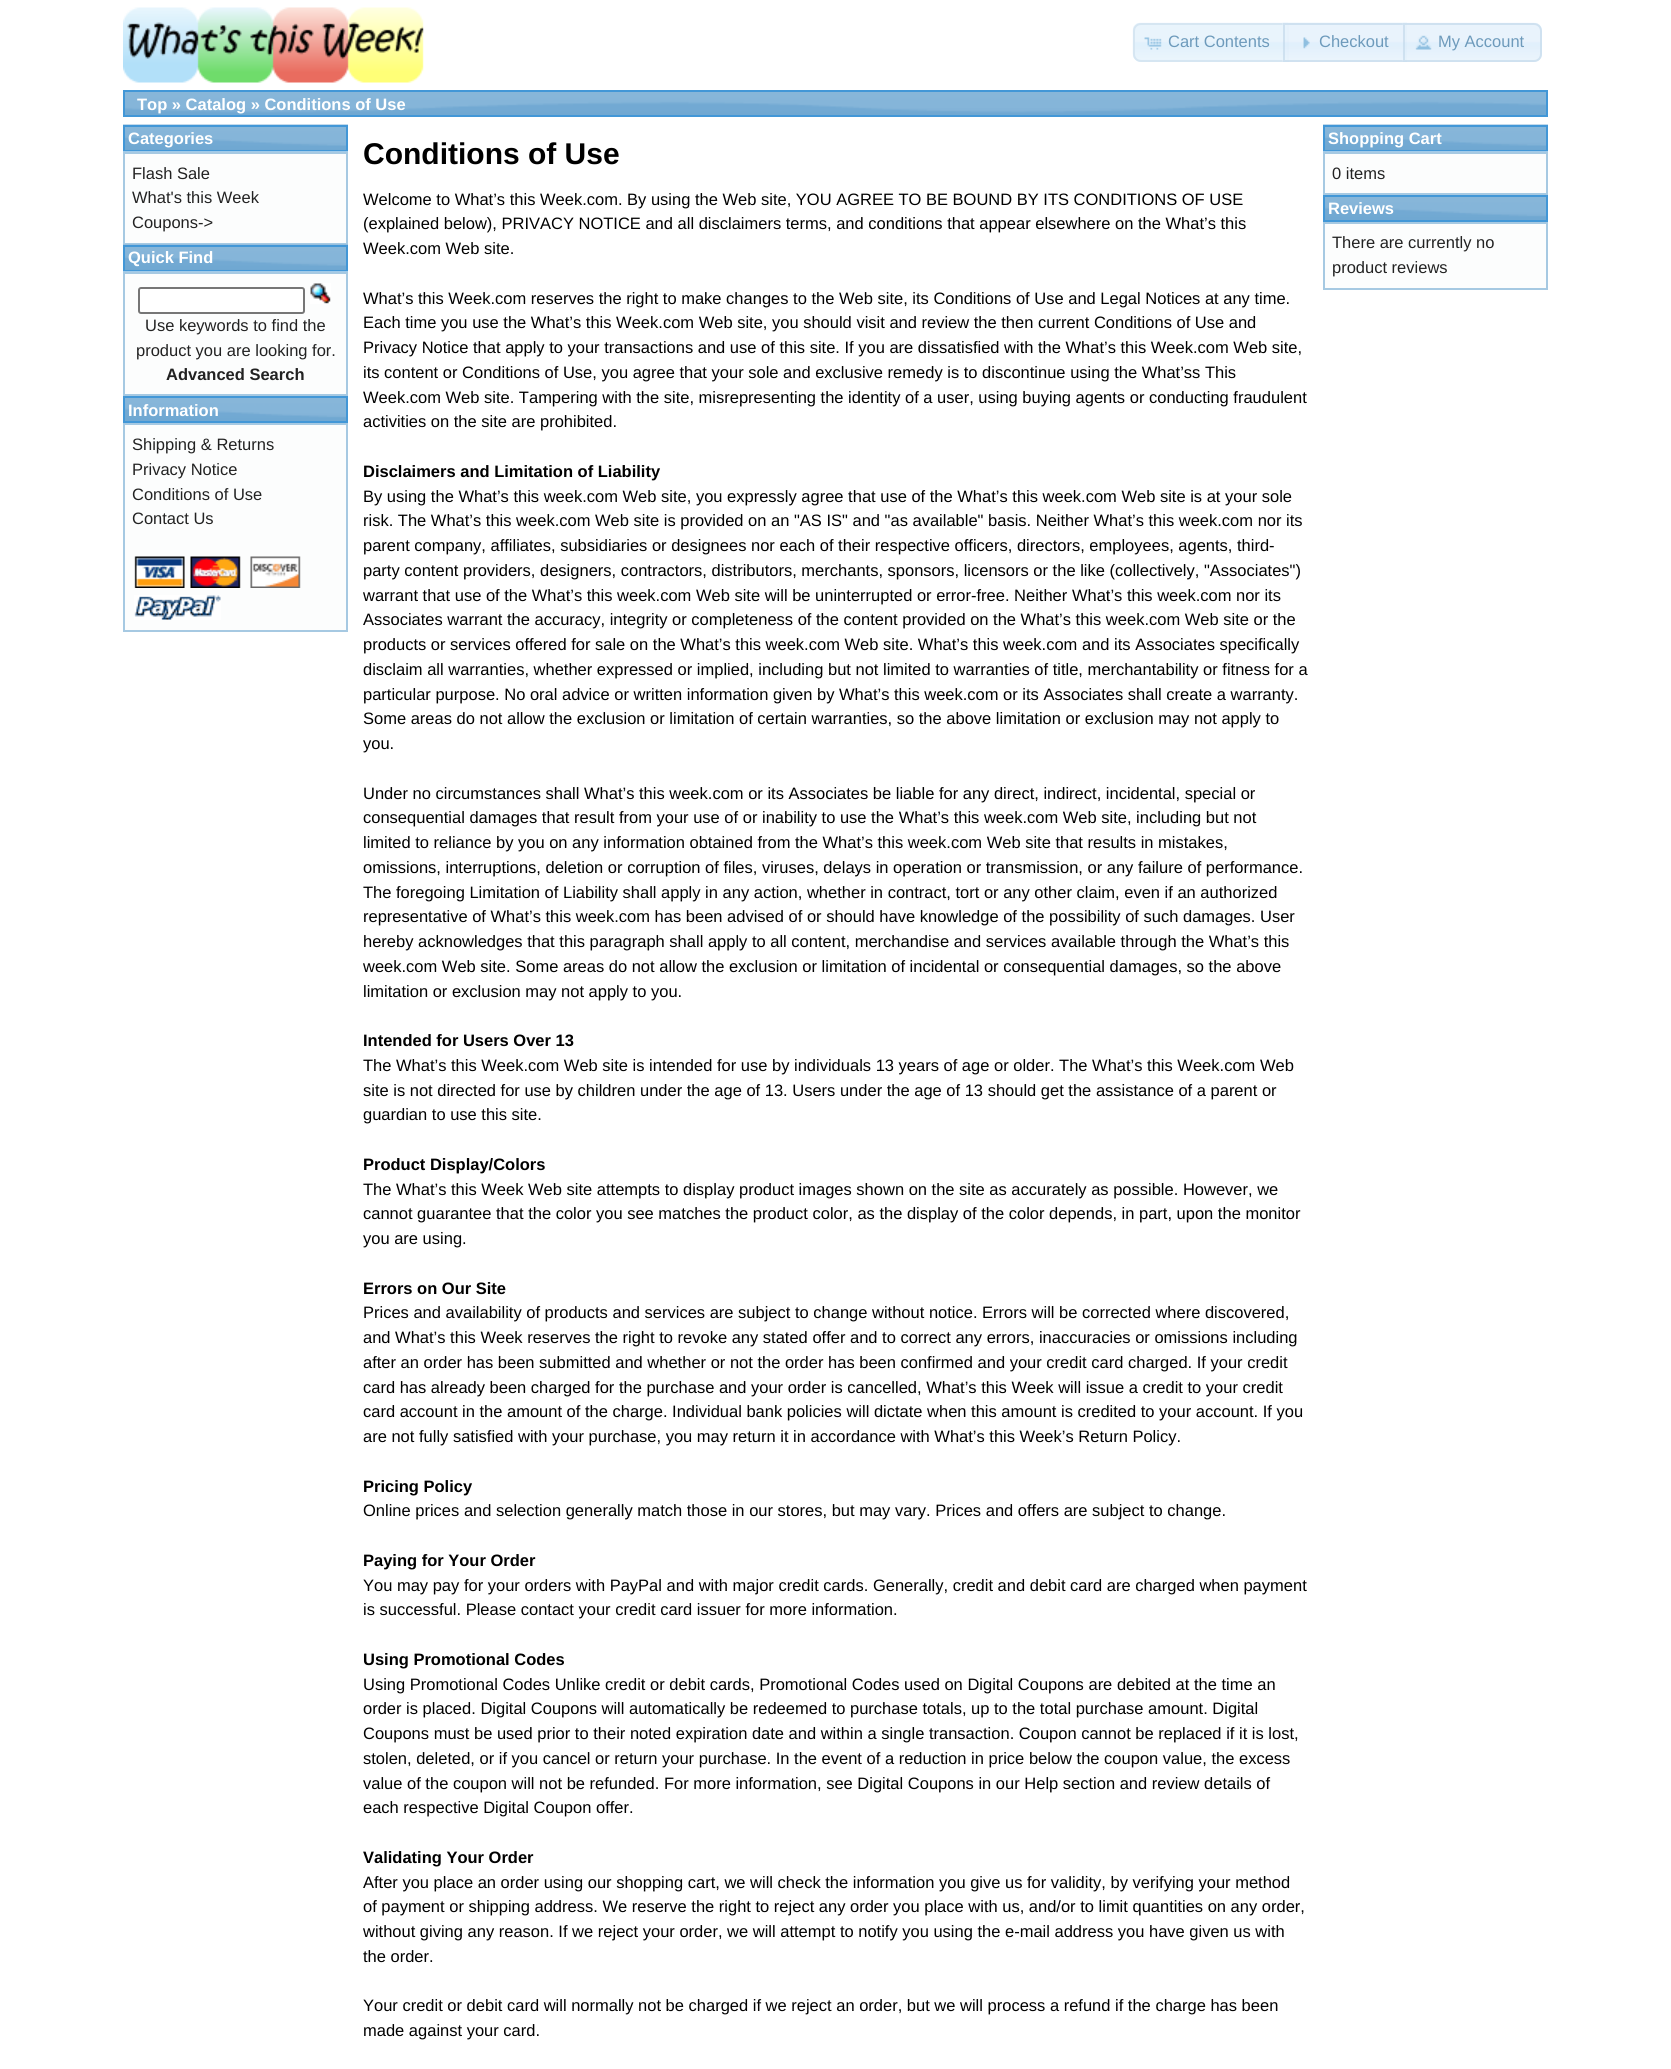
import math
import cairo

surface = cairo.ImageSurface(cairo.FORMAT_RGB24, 1671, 2069)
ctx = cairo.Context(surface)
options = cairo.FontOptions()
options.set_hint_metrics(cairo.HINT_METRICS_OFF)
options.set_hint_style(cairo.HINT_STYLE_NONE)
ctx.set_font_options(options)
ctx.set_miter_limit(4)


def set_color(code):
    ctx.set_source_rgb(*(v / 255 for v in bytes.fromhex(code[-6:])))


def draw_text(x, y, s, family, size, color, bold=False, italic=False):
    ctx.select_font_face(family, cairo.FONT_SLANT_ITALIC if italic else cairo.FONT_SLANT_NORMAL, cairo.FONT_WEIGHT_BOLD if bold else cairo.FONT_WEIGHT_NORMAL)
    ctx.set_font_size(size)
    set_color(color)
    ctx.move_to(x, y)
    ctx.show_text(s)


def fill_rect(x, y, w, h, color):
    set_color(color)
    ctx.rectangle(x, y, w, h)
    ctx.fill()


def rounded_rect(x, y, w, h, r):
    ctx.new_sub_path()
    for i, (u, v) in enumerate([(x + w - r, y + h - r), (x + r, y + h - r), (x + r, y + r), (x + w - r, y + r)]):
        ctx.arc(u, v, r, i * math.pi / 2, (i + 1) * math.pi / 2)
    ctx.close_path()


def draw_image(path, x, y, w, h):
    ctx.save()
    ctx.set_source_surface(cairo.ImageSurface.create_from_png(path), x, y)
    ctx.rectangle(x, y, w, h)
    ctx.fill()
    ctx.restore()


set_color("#ffffff")
ctx.paint()
draw_image("assets/img1.png", 123, 7, 301, 76)
set_color("#e9f4fd")
ctx.new_path()
ctx.move_to(1141, 23)
ctx.line_to(1289, 23)
ctx.line_to(1289, 62)
ctx.line_to(1141, 62)
ctx.curve_to(1136.5, 62, 1133, 58.5, 1133, 54)
ctx.line_to(1133, 31)
ctx.curve_to(1133, 26.5, 1136.5, 23, 1141, 23)
ctx.close_path()
ctx.fill()
draw_image("assets/img2.png", 1132, 22, 156, 37)
ctx.new_path()
ctx.move_to(1141, 24)
ctx.line_to(1288, 24)
ctx.line_to(1288, 61)
ctx.line_to(1141, 61)
ctx.curve_to(1137, 61, 1134, 58, 1134, 54)
ctx.line_to(1134, 31)
ctx.curve_to(1134, 27, 1137, 24, 1141, 24)
ctx.close_path()
set_color("#d6e6f2")
ctx.stroke()
draw_image("assets/img3.png", 1144, 37, 18, 13)
draw_text(1168, 47, "Cart Contents", "Liberation Sans", 16.5, "#6d9abb")
ctx.set_source_rgba(0.875, 0.937, 0.988, 0.7)
ctx.rectangle(1283, 23, 124, 39)
ctx.fill()
draw_image("assets/img4.png", 1282, 22, 125, 40)
ctx.rectangle(1284, 24, 122, 37)
ctx.set_source_rgba(0.773, 0.859, 0.925, 0.7)
ctx.stroke()
draw_image("assets/img5.png", 1303, 37, 7, 12)
draw_text(1319, 47, "Checkout", "Liberation Sans", 16.5, "#6d9abb")
ctx.set_source_rgba(0.875, 0.937, 0.988, 0.7)
ctx.new_path()
ctx.move_to(1403, 23)
ctx.line_to(1534, 23)
ctx.curve_to(1538.5, 23, 1542, 26.5, 1542, 31)
ctx.line_to(1542, 54)
ctx.curve_to(1542, 58.5, 1538.5, 62, 1534, 62)
ctx.line_to(1403, 62)
ctx.close_path()
ctx.fill()
draw_image("assets/img6.png", 1402, 22, 140, 39)
ctx.new_path()
ctx.move_to(1404, 24)
ctx.line_to(1534, 24)
ctx.curve_to(1538, 24, 1541, 27, 1541, 31)
ctx.line_to(1541, 54)
ctx.curve_to(1541, 58, 1538, 61, 1534, 61)
ctx.line_to(1404, 61)
ctx.close_path()
ctx.set_source_rgba(0.773, 0.859, 0.925, 0.7)
ctx.stroke()
draw_image("assets/img7.png", 1415, 35, 17, 15)
draw_text(1438, 47, "My Account", "Liberation Sans", 16.5, "#6d9abb")
draw_image("assets/img8.png", 125, 92, 1421, 23)
ctx.rectangle(124, 91, 1423, 25)
set_color("#4297d7")
ctx.stroke()
draw_text(137, 110, "Top » Catalog » Conditions of Use", "Liberation Sans", 16.5, "#ffffff", bold=True)
draw_image("assets/img9.png", 123, 124, 225, 26)
ctx.rectangle(124, 126, 223, 25)
set_color("#4297d7")
ctx.stroke()
draw_text(128, 144, "Categories", "Liberation Sans", 16.5, "#ffffff", bold=True)
set_color("#fcfdfd")
ctx.rectangle(124, 153, 223, 91)
ctx.fill_preserve()
set_color("#a6c9e2")
ctx.stroke()
fill_rect(123, 151, 225, 1, "#9fcaea")
draw_text(132, 179, "Flash Sale", "Liberation Sans", 16.5, "#222222")
draw_text(132, 203, "What's this Week", "Liberation Sans", 16.5, "#222222")
draw_text(132, 228, "Coupons->", "Liberation Sans", 16.5, "#222222")
draw_image("assets/img10.png", 123, 244, 225, 26)
ctx.rectangle(124, 246, 223, 25)
set_color("#4297d7")
ctx.stroke()
draw_text(128, 263, "Quick Find", "Liberation Sans", 16.5, "#ffffff", bold=True)
set_color("#fcfdfd")
ctx.rectangle(124, 273, 223, 122)
ctx.fill_preserve()
set_color("#a6c9e2")
ctx.stroke()
fill_rect(123, 271, 225, 1, "#9fcaea")
set_color("#ffffff")
rounded_rect(139, 288, 165, 25, 2)
ctx.fill_preserve()
set_color("#767676")
ctx.stroke()
draw_image("assets/img11.png", 310, 283, 21, 21)
draw_text(145, 331, "Use keywords to find the", "Liberation Sans", 16.5, "#222222")
draw_text(136, 356, "product you are looking for.", "Liberation Sans", 16.5, "#222222")
draw_text(166, 380, "Advanced Search", "Liberation Sans", 16.5, "#222222", bold=True)
draw_image("assets/img12.png", 125, 398, 221, 23)
ctx.rectangle(124, 397, 223, 25)
set_color("#4297d7")
ctx.stroke()
draw_text(128, 416, "Information", "Liberation Sans", 16.5, "#ffffff", bold=True)
set_color("#fcfdfd")
ctx.rectangle(124, 424, 223, 207)
ctx.fill_preserve()
set_color("#a6c9e2")
ctx.stroke()
draw_text(132, 450, "Shipping & Returns", "Liberation Sans", 16.5, "#222222")
draw_text(132, 475, "Privacy Notice", "Liberation Sans", 16.5, "#222222")
draw_text(132, 500, "Conditions of Use", "Liberation Sans", 16.5, "#222222")
draw_text(132, 524, "Contact Us", "Liberation Sans", 16.5, "#222222")
draw_image("assets/img13.png", 134, 556, 51, 32)
draw_image("assets/img14.png", 190, 556, 51, 32)
draw_image("assets/img15.png", 250, 556, 51, 32)
draw_image("assets/img16.png", 134, 595, 87, 25)
draw_text(363, 164, "Conditions of Use", "Liberation Sans", 30, "#000000", bold=True)
draw_text(363, 205, "Welcome to What’s this Week.com. By using the Web site, YOU AGREE TO BE BOUND BY ITS CONDITIONS OF USE", "Liberation Sans", 16.5, "#000000")
draw_text(363, 229, "(explained below), PRIVACY NOTICE and all disclaimers terms, and conditions that appear elsewhere on the What’s this", "Liberation Sans", 16.5, "#000000")
draw_text(363, 254, "Week.com Web site.", "Liberation Sans", 16.5, "#000000")
draw_text(363, 304, "What’s this Week.com reserves the right to make changes to the Web site, its Conditions of Use and Legal Notices at any time.", "Liberation Sans", 16.5, "#000000")
draw_text(363, 328, "Each time you use the What’s this Week.com Web site, you should visit and review the then current Conditions of Use and", "Liberation Sans", 16.5, "#000000")
draw_text(363, 353, "Privacy Notice that apply to your transactions and use of this site. If you are dissatisfied with the What’s this Week.com Web site,", "Liberation Sans", 16.5, "#000000")
draw_text(363, 378, "its content or Conditions of Use, you agree that your sole and exclusive remedy is to discontinue using the What’ss This", "Liberation Sans", 16.5, "#000000")
draw_text(363, 403, "Week.com Web site. Tampering with the site, misrepresenting the identity of a user, using buying agents or conducting fraudulent", "Liberation Sans", 16.5, "#000000")
draw_text(363, 427, "activities on the site are prohibited.", "Liberation Sans", 16.5, "#000000")
draw_text(363, 477, "Disclaimers and Limitation of Liability", "Liberation Sans", 16.5, "#000000", bold=True)
draw_text(363, 502, "By using the What’s this week.com Web site, you expressly agree that use of the What’s this week.com Web site is at your sole", "Liberation Sans", 16.5, "#000000")
draw_text(363, 526, "risk. The What’s this week.com Web site is provided on an \"AS IS\" and \"as available\" basis. Neither What’s this week.com nor its", "Liberation Sans", 16.5, "#000000")
draw_text(363, 551, "parent company, affiliates, subsidiaries or designees nor each of their respective officers, directors, employees, agents, third-", "Liberation Sans", 16.5, "#000000")
draw_text(363, 576, "party content providers, designers, contractors, distributors, merchants, sponsors, licensors or the like (collectively, \"Associates\")", "Liberation Sans", 16.5, "#000000")
draw_text(363, 601, "warrant that use of the What’s this week.com Web site will be uninterrupted or error-free. Neither What’s this week.com nor its", "Liberation Sans", 16.5, "#000000")
draw_text(363, 625, "Associates warrant the accuracy, integrity or completeness of the content provided on the What’s this week.com Web site or the", "Liberation Sans", 16.5, "#000000")
draw_text(363, 650, "products or services offered for sale on the What’s this week.com Web site. What’s this week.com and its Associates specifically", "Liberation Sans", 16.5, "#000000")
draw_text(363, 675, "disclaim all warranties, whether expressed or implied, including but not limited to warranties of title, merchantability or fitness for a", "Liberation Sans", 16.5, "#000000")
draw_text(363, 700, "particular purpose. No oral advice or written information given by What’s this week.com or its Associates shall create a warranty.", "Liberation Sans", 16.5, "#000000")
draw_text(363, 724, "Some areas do not allow the exclusion or limitation of certain warranties, so the above limitation or exclusion may not apply to", "Liberation Sans", 16.5, "#000000")
draw_text(363, 749, "you.", "Liberation Sans", 16.5, "#000000")
draw_text(363, 799, "Under no circumstances shall What’s this week.com or its Associates be liable for any direct, indirect, incidental, special or", "Liberation Sans", 16.5, "#000000")
draw_text(363, 823, "consequential damages that result from your use of or inability to use the What’s this week.com Web site, including but not", "Liberation Sans", 16.5, "#000000")
draw_text(363, 848, "limited to reliance by you on any information obtained from the What’s this week.com Web site that results in mistakes,", "Liberation Sans", 16.5, "#000000")
draw_text(363, 873, "omissions, interruptions, deletion or corruption of files, viruses, delays in operation or transmission, or any failure of performance.", "Liberation Sans", 16.5, "#000000")
draw_text(363, 898, "The foregoing Limitation of Liability shall apply in any action, whether in contract, tort or any other claim, even if an authorized", "Liberation Sans", 16.5, "#000000")
draw_text(363, 922, "representative of What’s this week.com has been advised of or should have knowledge of the possibility of such damages. User", "Liberation Sans", 16.5, "#000000")
draw_text(363, 947, "hereby acknowledges that this paragraph shall apply to all content, merchandise and services available through the What’s this", "Liberation Sans", 16.5, "#000000")
draw_text(363, 972, "week.com Web site. Some areas do not allow the exclusion or limitation of incidental or consequential damages, so the above", "Liberation Sans", 16.5, "#000000")
draw_text(363, 997, "limitation or exclusion may not apply to you.", "Liberation Sans", 16.5, "#000000")
draw_text(363, 1046, "Intended for Users Over 13", "Liberation Sans", 16.5, "#000000", bold=True)
draw_text(363, 1071, "The What’s this Week.com Web site is intended for use by individuals 13 years of age or older. The What’s this Week.com Web", "Liberation Sans", 16.5, "#000000")
draw_text(363, 1096, "site is not directed for use by children under the age of 13. Users under the age of 13 should get the assistance of a parent or", "Liberation Sans", 16.5, "#000000")
draw_text(363, 1120, "guardian to use this site.", "Liberation Sans", 16.5, "#000000")
draw_text(363, 1170, "Product Display/Colors", "Liberation Sans", 16.5, "#000000", bold=True)
draw_text(363, 1195, "The What’s this Week Web site attempts to display product images shown on the site as accurately as possible. However, we", "Liberation Sans", 16.5, "#000000")
draw_text(363, 1219, "cannot guarantee that the color you see matches the product color, as the display of the color depends, in part, upon the monitor", "Liberation Sans", 16.5, "#000000")
draw_text(363, 1244, "you are using.", "Liberation Sans", 16.5, "#000000")
draw_text(363, 1294, "Errors on Our Site", "Liberation Sans", 16.5, "#000000", bold=True)
draw_text(363, 1318, "Prices and availability of products and services are subject to change without notice. Errors will be corrected where discovered,", "Liberation Sans", 16.5, "#000000")
draw_text(363, 1343, "and What’s this Week reserves the right to revoke any stated offer and to correct any errors, inaccuracies or omissions including", "Liberation Sans", 16.5, "#000000")
draw_text(363, 1368, "after an order has been submitted and whether or not the order has been confirmed and your credit card charged. If your credit", "Liberation Sans", 16.5, "#000000")
draw_text(363, 1393, "card has already been charged for the purchase and your order is cancelled, What’s this Week will issue a credit to your credit", "Liberation Sans", 16.5, "#000000")
draw_text(363, 1417, "card account in the amount of the charge. Individual bank policies will dictate when this amount is credited to your account. If you", "Liberation Sans", 16.5, "#000000")
draw_text(363, 1442, "are not fully satisfied with your purchase, you may return it in accordance with What’s this Week’s Return Policy.", "Liberation Sans", 16.5, "#000000")
draw_text(363, 1492, "Pricing Policy", "Liberation Sans", 16.5, "#000000", bold=True)
draw_text(363, 1516, "Online prices and selection generally match those in our stores, but may vary. Prices and offers are subject to change.", "Liberation Sans", 16.5, "#000000")
draw_text(363, 1566, "Paying for Your Order", "Liberation Sans", 16.5, "#000000", bold=True)
draw_text(363, 1591, "You may pay for your orders with PayPal and with major credit cards. Generally, credit and debit card are charged when payment", "Liberation Sans", 16.5, "#000000")
draw_text(363, 1615, "is successful. Please contact your credit card issuer for more information.", "Liberation Sans", 16.5, "#000000")
draw_text(363, 1665, "Using Promotional Codes", "Liberation Sans", 16.5, "#000000", bold=True)
draw_text(363, 1690, "Using Promotional Codes Unlike credit or debit cards, Promotional Codes used on Digital Coupons are debited at the time an", "Liberation Sans", 16.5, "#000000")
draw_text(363, 1714, "order is placed. Digital Coupons will automatically be redeemed to purchase totals, up to the total purchase amount. Digital", "Liberation Sans", 16.5, "#000000")
draw_text(363, 1739, "Coupons must be used prior to their noted expiration date and within a single transaction. Coupon cannot be replaced if it is lost,", "Liberation Sans", 16.5, "#000000")
draw_text(363, 1764, "stolen, deleted, or if you cancel or return your purchase. In the event of a reduction in price below the coupon value, the excess", "Liberation Sans", 16.5, "#000000")
draw_text(363, 1789, "value of the coupon will not be refunded. For more information, see Digital Coupons in our Help section and review details of", "Liberation Sans", 16.5, "#000000")
draw_text(363, 1813, "each respective Digital Coupon offer.", "Liberation Sans", 16.5, "#000000")
draw_text(363, 1863, "Validating Your Order", "Liberation Sans", 16.5, "#000000", bold=True)
draw_text(363, 1888, "After you place an order using our shopping cart, we will check the information you give us for validity, by verifying your method", "Liberation Sans", 16.5, "#000000")
draw_text(363, 1912, "of payment or shipping address. We reserve the right to reject any order you place with us, and/or to limit quantities on any order,", "Liberation Sans", 16.5, "#000000")
draw_text(363, 1937, "without giving any reason. If we reject your order, we will attempt to notify you using the e-mail address you have given us with", "Liberation Sans", 16.5, "#000000")
draw_text(363, 1962, "the order.", "Liberation Sans", 16.5, "#000000")
draw_text(363, 2011, "Your credit or debit card will normally not be charged if we reject an order, but we will process a refund if the charge has been", "Liberation Sans", 16.5, "#000000")
draw_text(363, 2036, "made against your card.", "Liberation Sans", 16.5, "#000000")
draw_image("assets/img9.png", 1323, 124, 225, 26)
ctx.rectangle(1324, 126, 223, 25)
set_color("#4297d7")
ctx.stroke()
draw_text(1328, 144, "Shopping Cart", "Liberation Sans", 16.5, "#ffffff", bold=True)
set_color("#fcfdfd")
ctx.rectangle(1324, 153, 223, 41)
ctx.fill_preserve()
set_color("#a6c9e2")
ctx.stroke()
fill_rect(1323, 151, 225, 1, "#a0caea")
draw_text(1332, 179, "0 items", "Liberation Sans", 16.5, "#222222")
draw_image("assets/img12.png", 1325, 197, 221, 23)
ctx.rectangle(1324, 196, 223, 25)
set_color("#4297d7")
ctx.stroke()
draw_text(1328, 214, "Reviews", "Liberation Sans", 16.5, "#ffffff", bold=True)
set_color("#fcfdfd")
ctx.rectangle(1324, 223, 223, 66)
ctx.fill_preserve()
set_color("#a6c9e2")
ctx.stroke()
draw_text(1332, 248, "There are currently no", "Liberation Sans", 16.5, "#222222")
draw_text(1332, 273, "product reviews", "Liberation Sans", 16.5, "#222222")
surface.write_to_png("output.png")
